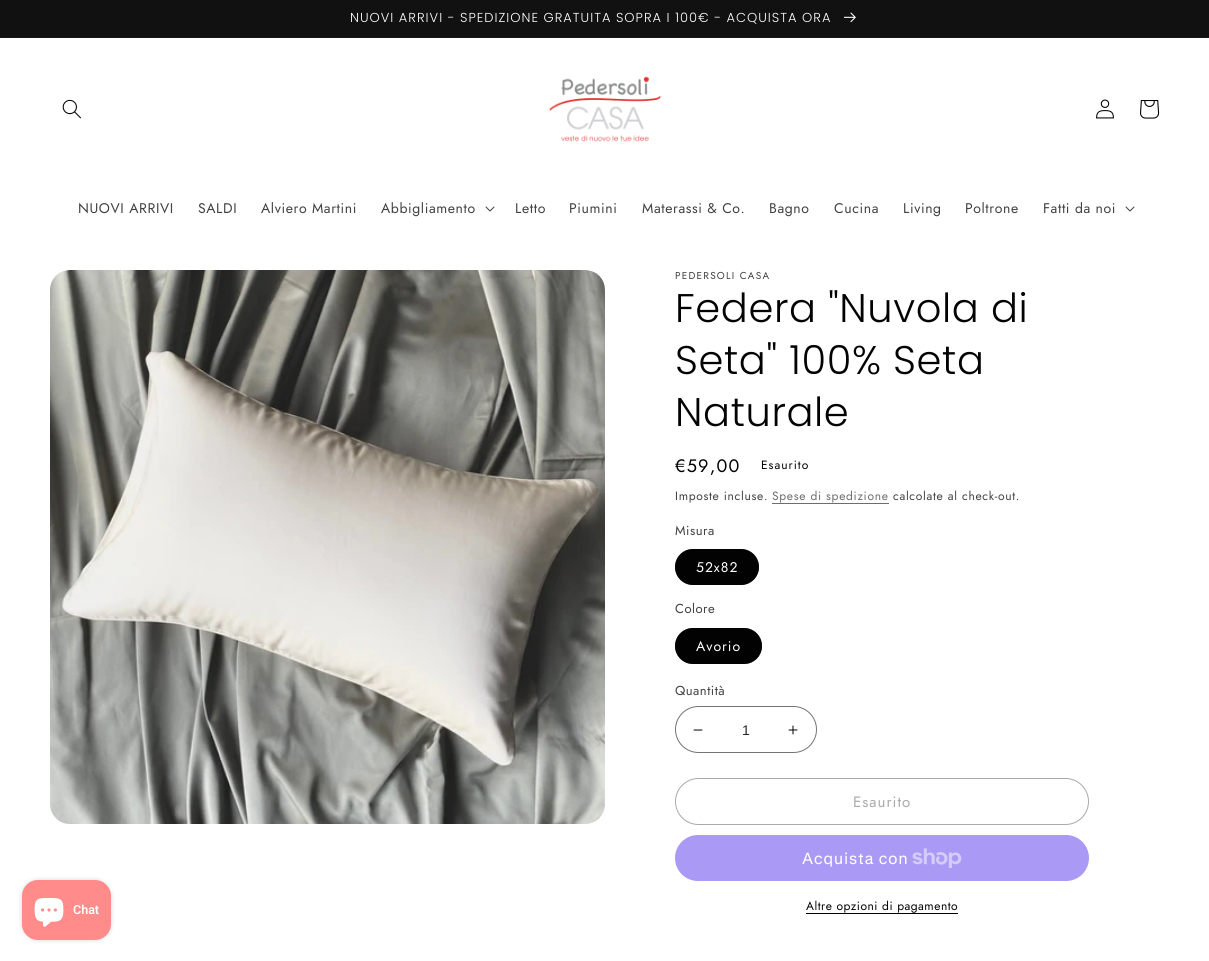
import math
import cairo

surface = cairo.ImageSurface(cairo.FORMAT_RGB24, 1209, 961)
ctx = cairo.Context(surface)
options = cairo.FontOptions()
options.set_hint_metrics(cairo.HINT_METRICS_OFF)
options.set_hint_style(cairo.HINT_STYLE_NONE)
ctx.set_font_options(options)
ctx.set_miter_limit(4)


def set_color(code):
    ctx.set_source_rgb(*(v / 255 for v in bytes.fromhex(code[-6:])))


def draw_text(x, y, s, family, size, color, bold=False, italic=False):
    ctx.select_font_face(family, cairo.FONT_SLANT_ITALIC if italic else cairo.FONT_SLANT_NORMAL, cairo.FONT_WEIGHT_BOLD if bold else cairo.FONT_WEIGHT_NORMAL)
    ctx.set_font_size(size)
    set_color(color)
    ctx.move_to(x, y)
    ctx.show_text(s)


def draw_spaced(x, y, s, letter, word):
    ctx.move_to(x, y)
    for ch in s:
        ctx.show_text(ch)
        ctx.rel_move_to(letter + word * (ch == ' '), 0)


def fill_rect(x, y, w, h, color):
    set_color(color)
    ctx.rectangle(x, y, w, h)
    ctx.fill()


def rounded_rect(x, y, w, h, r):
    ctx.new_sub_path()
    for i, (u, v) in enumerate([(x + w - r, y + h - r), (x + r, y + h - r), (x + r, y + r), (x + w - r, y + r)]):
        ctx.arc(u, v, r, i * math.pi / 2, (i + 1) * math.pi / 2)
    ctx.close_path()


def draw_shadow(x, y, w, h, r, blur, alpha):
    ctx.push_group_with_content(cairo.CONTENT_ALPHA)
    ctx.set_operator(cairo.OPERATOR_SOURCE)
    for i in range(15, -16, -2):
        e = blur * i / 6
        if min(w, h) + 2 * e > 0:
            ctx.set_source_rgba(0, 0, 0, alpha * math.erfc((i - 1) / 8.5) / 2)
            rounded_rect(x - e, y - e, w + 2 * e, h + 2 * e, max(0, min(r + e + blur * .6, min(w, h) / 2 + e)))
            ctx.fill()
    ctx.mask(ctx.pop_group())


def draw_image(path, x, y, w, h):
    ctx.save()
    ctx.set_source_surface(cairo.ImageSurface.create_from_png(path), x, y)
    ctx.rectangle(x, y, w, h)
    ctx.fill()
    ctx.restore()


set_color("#ffffff")
ctx.paint()
fill_rect(0, 37, 1209, 1, "#161616")
fill_rect(0, 0, 1209, 37, "#111111")
ctx.select_font_face("Poppins Light")
ctx.set_font_size(13)
set_color("#ffffff")
draw_spaced(350, 22, "NUOVI ARRIVI - SPEDIZIONE GRATUITA SOPRA I 100€ - ACQUISTA ORA", 1, 0)
draw_image("assets/img1.png", 844, 12, 12, 11)
draw_image("assets/img2.png", 62, 99, 19, 20)
draw_image("assets/img3.png", 549, 76, 113, 66)
draw_image("assets/img4.png", 1096, 99, 18, 20)
draw_image("assets/img5.png", 1140, 100, 20, 19)
ctx.select_font_face("Jost")
ctx.set_font_size(14)
set_color("#414141")
draw_spaced(78, 213, "NUOVI ARRIVI", 0.6, 0)
draw_spaced(198, 213, "SALDI", 0.6, 0)
draw_spaced(261, 213, "Alviero Martini", 0.6, 0)
draw_spaced(381, 213, "Abbigliamento", 0.6, 0)
draw_image("assets/img6.png", 485, 206, 10, 6)
draw_spaced(515, 213, "Letto", 0.6, 0)
draw_spaced(569, 213, "Piumini", 0.6, 0)
draw_spaced(642, 213, "Materassi & Co.", 0.6, 0)
draw_spaced(769, 213, "Bagno", 0.6, 0)
draw_spaced(834, 213, "Cucina", 0.6, 0)
draw_spaced(903, 213, "Living", 0.6, 0)
draw_spaced(965, 213, "Poltrone", 0.6, 0)
draw_spaced(1043, 213, "Fatti da noi", 0.6, 0)
draw_image("assets/img6.png", 1125, 206, 10, 6)
set_color("#000000")
draw_shadow(22, 880, 89, 60, 16, 2.5, 0.15)
set_color("#ff8b8b")
rounded_rect(22, 880, 89, 60, 16)
ctx.fill()
draw_image("assets/img7.png", 34, 898, 30, 29)
draw_text(73, 914, "Chat", "Roboto SemiBold", 12.5, "#ffffff")
draw_image("assets/img8.png", 50, 270, 555, 554)
ctx.select_font_face("Jost")
ctx.set_font_size(10)
set_color("#414141")
draw_spaced(675, 279, "PEDERSOLI CASA", 1.25, 0)
ctx.select_font_face("Poppins Light")
ctx.set_font_size(40)
set_color("#020202")
draw_spaced(675, 322, "Federa \"Nuvola di", 0.6, 0)
draw_spaced(675, 374, "Seta\" 100% Seta", 0.6, 0)
draw_spaced(675, 426, "Naturale", 0.6, 0)
ctx.select_font_face("Jost")
ctx.set_font_size(18)
draw_spaced(675, 472, "€59,00", 1.25, 0)
ctx.set_font_size(12)
draw_spaced(761, 469, "Esaurito", 1, 0)
set_color("#414141")
draw_spaced(675, 500, "Imposte incluse.", 0.7, 0)
set_color("#6f6c6c")
draw_spaced(772, 500, "Spese di spedizione", 0.7, 0)
fill_rect(772, 503, 117, 1, "#6f6c6c")
set_color("#414141")
draw_spaced(893, 500, "calcolate al check-out.", 0.7, 0)
ctx.set_font_size(13)
draw_spaced(675, 535, "Misura", 0.5, 0)
set_color("#020202")
rounded_rect(675, 549, 84, 36, 18)
ctx.fill()
rounded_rect(675.5, 549.5, 83, 35, 17.5)
ctx.set_source_rgba(0.008, 0.008, 0.008, 0.55)
ctx.set_line_width(1)
ctx.stroke()
ctx.set_font_size(14)
set_color("#ffffff")
draw_spaced(696, 572, "52x82", 1, 0)
ctx.set_font_size(13)
set_color("#414141")
draw_spaced(675, 613, "Colore", 0.5, 0)
set_color("#020202")
rounded_rect(675, 628, 87, 36, 18)
ctx.fill()
rounded_rect(675.5, 628.5, 86, 35, 17.5)
ctx.set_source_rgba(0.008, 0.008, 0.008, 0.55)
ctx.stroke()
ctx.set_font_size(14)
set_color("#ffffff")
draw_spaced(696, 651, "Avorio", 1, 0)
ctx.set_font_size(13)
set_color("#414141")
draw_spaced(675, 695, "Quantità", 0.5, 0)
draw_image("assets/img9.png", 693, 729, 10, 2)
draw_image("assets/img10.png", 788, 725, 10, 10)
rounded_rect(675.5, 706.5, 141, 46, 23)
set_color("#747474")
ctx.stroke()
draw_text(742, 735, "1", "Liberation Sans", 14, "#282828")
rounded_rect(675.5, 778.5, 413, 46, 23)
set_color("#aba9a9")
ctx.stroke()
ctx.select_font_face("Jost")
ctx.set_font_size(15)
draw_spaced(853, 807, "Esaurito", 1, 0)
set_color("#aa99f5")
rounded_rect(675, 835, 414, 46, 23)
ctx.fill()
ctx.select_font_face("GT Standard")
ctx.set_font_size(16)
set_color("#ffffff")
draw_spaced(802, 864, "Acquista con", 0.6, 0)
draw_image("assets/img11.png", 912, 848, 50, 20)
ctx.select_font_face("Jost")
ctx.set_font_size(12)
set_color("#020202")
draw_spaced(806, 910, "Altre opzioni di pagamento", 0.5, 0)
fill_rect(806, 913, 152, 1, "#020202")
surface.write_to_png("output.png")
